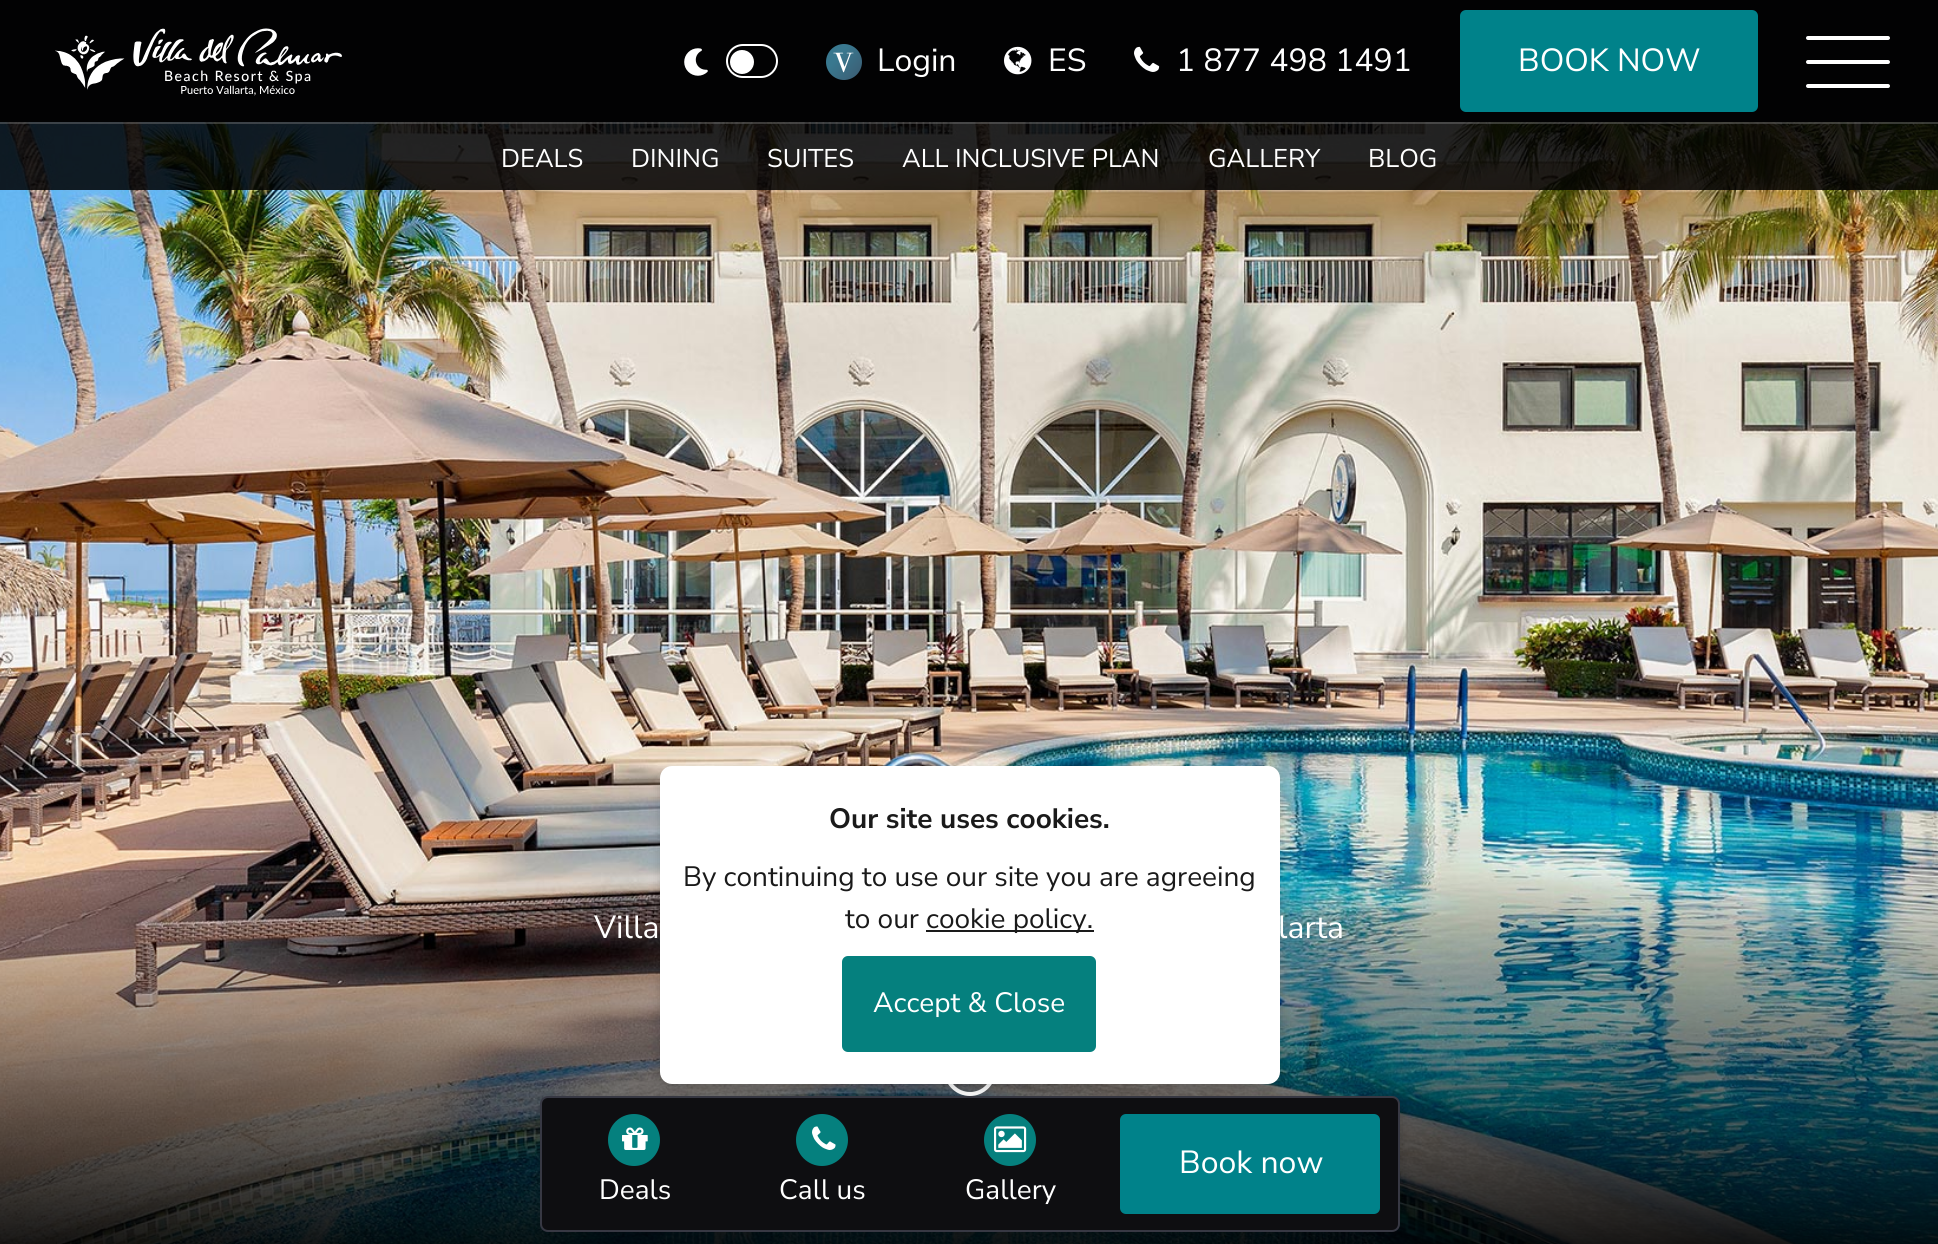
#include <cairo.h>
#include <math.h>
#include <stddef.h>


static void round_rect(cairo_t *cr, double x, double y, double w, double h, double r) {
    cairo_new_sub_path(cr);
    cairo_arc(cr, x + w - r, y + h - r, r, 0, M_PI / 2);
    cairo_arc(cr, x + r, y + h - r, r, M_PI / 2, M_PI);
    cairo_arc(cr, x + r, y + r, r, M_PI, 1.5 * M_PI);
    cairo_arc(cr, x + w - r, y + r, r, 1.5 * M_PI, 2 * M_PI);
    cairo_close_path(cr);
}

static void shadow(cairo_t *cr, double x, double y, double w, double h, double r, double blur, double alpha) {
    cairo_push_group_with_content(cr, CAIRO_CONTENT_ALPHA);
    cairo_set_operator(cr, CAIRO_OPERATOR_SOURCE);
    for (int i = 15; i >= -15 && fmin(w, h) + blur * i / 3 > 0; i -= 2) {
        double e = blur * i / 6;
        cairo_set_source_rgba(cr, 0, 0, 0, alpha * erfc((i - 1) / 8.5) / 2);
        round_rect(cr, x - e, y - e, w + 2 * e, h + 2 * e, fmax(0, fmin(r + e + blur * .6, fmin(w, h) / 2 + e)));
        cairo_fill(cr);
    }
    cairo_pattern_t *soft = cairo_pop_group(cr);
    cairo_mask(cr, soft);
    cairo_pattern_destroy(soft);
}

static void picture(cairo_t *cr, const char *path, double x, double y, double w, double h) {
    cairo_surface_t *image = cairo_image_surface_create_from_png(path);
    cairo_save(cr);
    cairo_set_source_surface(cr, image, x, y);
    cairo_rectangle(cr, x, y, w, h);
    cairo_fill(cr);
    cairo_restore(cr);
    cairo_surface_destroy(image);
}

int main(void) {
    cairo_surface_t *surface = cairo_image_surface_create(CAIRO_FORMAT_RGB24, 1938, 1244);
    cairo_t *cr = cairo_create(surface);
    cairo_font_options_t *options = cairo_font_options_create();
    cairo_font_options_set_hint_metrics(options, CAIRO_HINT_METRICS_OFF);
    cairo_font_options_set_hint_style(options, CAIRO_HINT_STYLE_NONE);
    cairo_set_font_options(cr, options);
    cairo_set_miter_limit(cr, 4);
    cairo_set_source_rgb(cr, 1, 1, 1);
    cairo_paint(cr);
    picture(cr, "img6.png", 0, 122, 1938, 1122);
    cairo_set_source_rgba(cr, 0.008, 0.008, 0.012, 0.8);
    cairo_rectangle(cr, 0, 122, 1938, 68);
    cairo_fill(cr);
    cairo_set_source_rgba(cr, 0.008, 0.008, 0.012, 0.5);
    cairo_rectangle(cr, 0, 122, 1938, 2);
    cairo_fill(cr);
    cairo_set_source_rgba(cr, 1, 1, 1, 0.2);
    cairo_rectangle(cr, 0, 122, 1938, 2);
    cairo_fill(cr);
    cairo_set_source_rgb(cr, 0.008, 0.008, 0.012);
    cairo_rectangle(cr, 0, 0, 1938, 122);
    cairo_fill(cr);
    picture(cr, "img1.png", 55, 28, 287, 68);
    picture(cr, "img2.png", 684, 48, 24, 28);
    round_rect(cr, 727, 45, 50, 32, 16);
    cairo_set_source_rgb(cr, 1, 1, 1);
    cairo_stroke(cr);
    cairo_arc(cr, 742, 62, 12, 0, 2 * M_PI);
    cairo_fill(cr);
    picture(cr, "img3.png", 826, 44, 36, 36);
    cairo_select_font_face(cr, "Nunito Sans", CAIRO_FONT_SLANT_NORMAL, CAIRO_FONT_WEIGHT_NORMAL);
    cairo_set_font_size(cr, 32);
    cairo_move_to(cr, 877, 71);
    cairo_show_text(cr, "Login");
    picture(cr, "img4.png", 1004, 46, 28, 29);
    cairo_move_to(cr, 1048, 71);
    cairo_show_text(cr, "ES");
    picture(cr, "img5.png", 1134, 46, 26, 26);
    cairo_move_to(cr, 1176, 71);
    cairo_show_text(cr, "1 877 498 1491");
    cairo_set_source_rgb(cr, 0, 0.51, 0.541);
    round_rect(cr, 1461, 11, 296, 100, 5);
    cairo_fill_preserve(cr);
    cairo_stroke(cr);
    cairo_set_source_rgb(cr, 1, 1, 1);
    cairo_move_to(cr, 1518, 71);
    cairo_show_text(cr, "BOOK NOW");
    round_rect(cr, 1806, 36, 84, 4, 2);
    cairo_fill(cr);
    round_rect(cr, 1806, 60, 84, 4, 2);
    cairo_fill(cr);
    round_rect(cr, 1806, 84, 84, 4, 2);
    cairo_fill(cr);
    cairo_set_source_rgba(cr, 0.008, 0.008, 0.012, 0.3);
    cairo_rectangle(cr, 0, 124, 1938, 66);
    cairo_fill(cr);
    cairo_set_font_size(cr, 25.6);
    cairo_set_source_rgb(cr, 1, 1, 1);
    cairo_move_to(cr, 501, 167);
    cairo_show_text(cr, "DEALS");
    cairo_move_to(cr, 631, 167);
    cairo_show_text(cr, "DINING");
    cairo_move_to(cr, 767, 167);
    cairo_show_text(cr, "SUITES");
    cairo_move_to(cr, 902, 167);
    cairo_show_text(cr, "ALL INCLUSIVE PLAN");
    cairo_move_to(cr, 1208, 167);
    cairo_show_text(cr, "GALLERY");
    cairo_move_to(cr, 1368, 167);
    cairo_show_text(cr, "BLOG");
    round_rect(cr, 946, 1006, 48, 88, 24);
    cairo_set_line_width(cr, 4);
    cairo_stroke(cr);
    cairo_set_source_rgb(cr, 0, 0, 0);
    shadow(cr, 540, 1102, 860, 136, 8, 6, 0.16);
    cairo_set_source_rgb(cr, 0.055, 0.055, 0.067);
    round_rect(cr, 541, 1097, 858, 134, 7);
    cairo_fill_preserve(cr);
    cairo_set_source_rgb(cr, 0.216, 0.22, 0.263);
    cairo_set_line_width(cr, 2);
    cairo_stroke(cr);
    cairo_set_source_rgb(cr, 0, 0, 0);
    shadow(cr, 660, 772, 620, 318, 12, 6, 0.16);
    cairo_set_source_rgb(cr, 1, 1, 1);
    round_rect(cr, 660, 766, 620, 318, 12);
    cairo_fill(cr);
    cairo_select_font_face(cr, "Nunito Sans", CAIRO_FONT_SLANT_NORMAL, CAIRO_FONT_WEIGHT_BOLD);
    cairo_set_font_size(cr, 28);
    cairo_set_source_rgb(cr, 0.102, 0.102, 0.102);
    cairo_move_to(cr, 829, 828);
    cairo_show_text(cr, "Our site uses cookies.");
    cairo_select_font_face(cr, "Nunito Sans", CAIRO_FONT_SLANT_NORMAL, CAIRO_FONT_WEIGHT_NORMAL);
    cairo_move_to(cr, 683, 886);
    cairo_show_text(cr, "By continuing to use our site you are agreeing");
    cairo_move_to(cr, 845, 928);
    cairo_show_text(cr, "to our");
    cairo_rectangle(cr, 926, 930, 168, 2);
    cairo_fill(cr);
    cairo_move_to(cr, 926, 928);
    cairo_show_text(cr, "cookie policy.");
    cairo_set_source_rgb(cr, 0.02, 0.502, 0.494);
    round_rect(cr, 843, 957, 252, 94, 5);
    cairo_fill_preserve(cr);
    cairo_stroke(cr);
    cairo_set_source_rgb(cr, 1, 1, 1);
    cairo_move_to(cr, 873, 1012);
    cairo_show_text(cr, "Accept & Close");
    cairo_set_font_size(cr, 32);
    cairo_move_to(cr, 594, 938);
    cairo_show_text(cr, "Villa");
    cairo_move_to(cr, 1278, 938);
    cairo_show_text(cr, "larta");
    cairo_set_source_rgb(cr, 0, 0.51, 0.541);
    round_rect(cr, 1121, 1115, 258, 98, 5);
    cairo_fill_preserve(cr);
    cairo_stroke(cr);
    cairo_set_source_rgb(cr, 1, 1, 1);
    cairo_move_to(cr, 1179, 1173);
    cairo_show_text(cr, "Book now");
    cairo_set_source_rgb(cr, 0.02, 0.502, 0.494);
    cairo_new_path(cr);
    cairo_arc(cr, 634, 1140, 26, 0, 2 * M_PI);
    cairo_fill(cr);
    picture(cr, "img7.png", 622, 1127, 26, 23);
    cairo_set_font_size(cr, 28);
    cairo_set_source_rgb(cr, 1, 1, 1);
    cairo_move_to(cr, 599, 1199);
    cairo_show_text(cr, "Deals");
    cairo_set_source_rgb(cr, 0.02, 0.502, 0.494);
    cairo_new_path(cr);
    cairo_arc(cr, 822, 1140, 26, 0, 2 * M_PI);
    cairo_fill(cr);
    picture(cr, "img8.png", 812, 1126, 24, 24);
    cairo_set_source_rgb(cr, 1, 1, 1);
    cairo_move_to(cr, 779, 1199);
    cairo_show_text(cr, "Call us");
    cairo_set_source_rgb(cr, 0.02, 0.502, 0.494);
    cairo_new_path(cr);
    cairo_arc(cr, 1010, 1140, 26, 0, 2 * M_PI);
    cairo_fill(cr);
    picture(cr, "img9.png", 994, 1126, 33, 27);
    cairo_set_source_rgb(cr, 1, 1, 1);
    cairo_move_to(cr, 965, 1199);
    cairo_show_text(cr, "Gallery");
    cairo_surface_write_to_png(surface, "page.png");
    cairo_font_options_destroy(options);
    cairo_destroy(cr);
    cairo_surface_destroy(surface);
    return 0;
}
